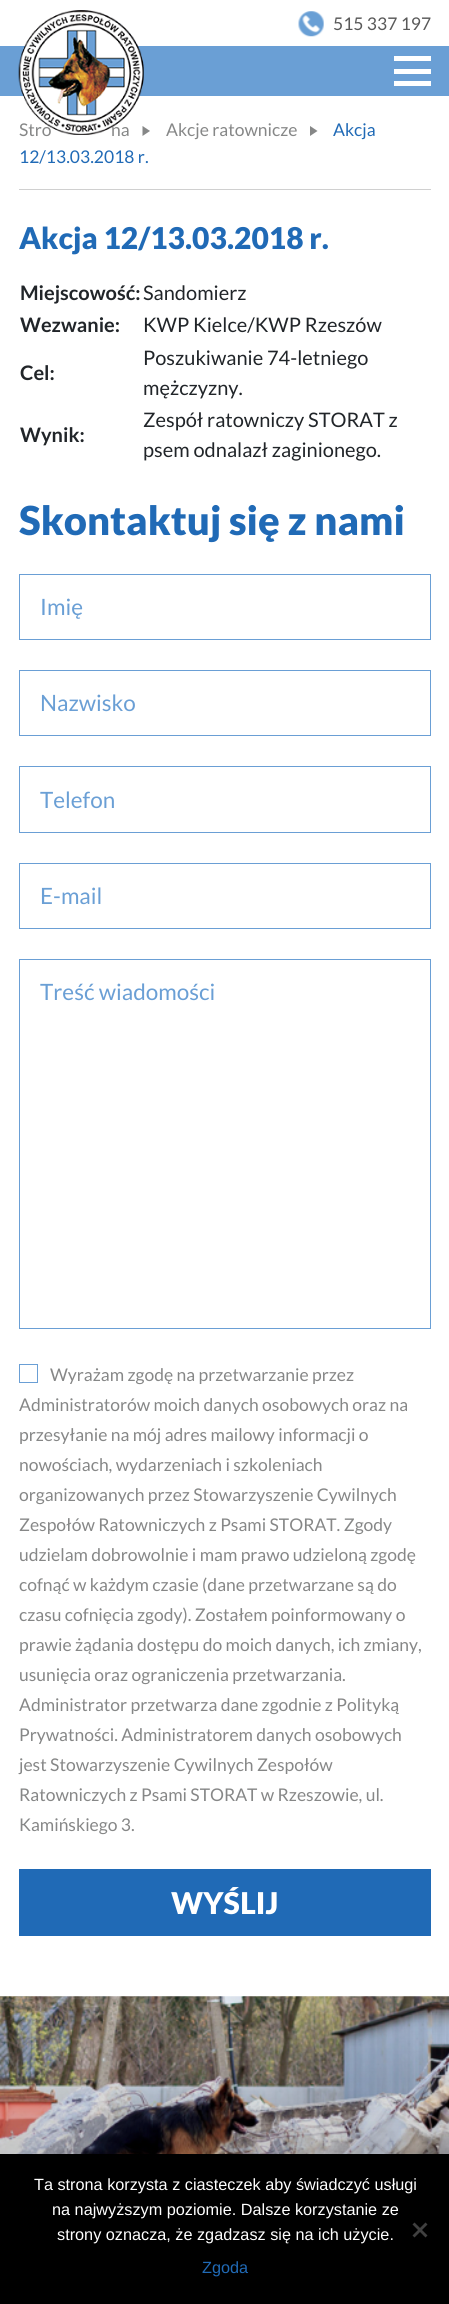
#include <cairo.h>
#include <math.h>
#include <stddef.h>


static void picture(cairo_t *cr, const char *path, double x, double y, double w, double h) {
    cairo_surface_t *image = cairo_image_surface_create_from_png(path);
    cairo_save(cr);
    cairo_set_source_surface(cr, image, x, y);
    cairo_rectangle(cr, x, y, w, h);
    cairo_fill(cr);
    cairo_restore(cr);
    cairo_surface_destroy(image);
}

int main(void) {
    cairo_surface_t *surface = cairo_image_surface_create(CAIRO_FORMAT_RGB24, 449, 2304);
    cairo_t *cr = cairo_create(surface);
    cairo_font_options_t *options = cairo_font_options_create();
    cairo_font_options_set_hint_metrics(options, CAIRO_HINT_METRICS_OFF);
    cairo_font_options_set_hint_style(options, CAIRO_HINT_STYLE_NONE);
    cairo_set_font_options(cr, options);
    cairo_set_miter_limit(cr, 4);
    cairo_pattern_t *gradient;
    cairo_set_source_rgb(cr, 1, 1, 1);
    cairo_paint(cr);
    cairo_set_source_rgb(cr, 0.416, 0.624, 0.835);
    cairo_rectangle(cr, 0, 46, 449, 50);
    cairo_fill(cr);
    cairo_select_font_face(cr, "Lato", CAIRO_FONT_SLANT_NORMAL, CAIRO_FONT_WEIGHT_NORMAL);
    cairo_set_font_size(cr, 17.5);
    cairo_set_source_rgb(cr, 0.525, 0.529, 0.529);
    cairo_move_to(cr, 19, 136);
    cairo_show_text(cr, "Stro");
    cairo_move_to(cr, 111, 136);
    cairo_show_text(cr, "na");
    cairo_new_path(cr);
    cairo_move_to(cr, 142.5, 136);
    cairo_line_to(cr, 142.5, 126);
    cairo_line_to(cr, 150, 131);
    cairo_close_path(cr);
    cairo_fill(cr);
    picture(cr, "img1.png", 18, 10, 126, 125);
    picture(cr, "img2.png", 298, 11, 26, 26);
    cairo_set_source_rgb(cr, 0.349, 0.349, 0.349);
    cairo_move_to(cr, 333, 30);
    cairo_show_text(cr, "515 337 197");
    cairo_set_source_rgb(cr, 1, 1, 1);
    cairo_rectangle(cr, 394, 56, 37, 5);
    cairo_fill(cr);
    cairo_rectangle(cr, 394, 69, 37, 5);
    cairo_fill(cr);
    cairo_rectangle(cr, 394, 81, 37, 5);
    cairo_fill(cr);
    cairo_set_source_rgb(cr, 0.816, 0.816, 0.816);
    cairo_rectangle(cr, 19, 189, 412, 1);
    cairo_fill(cr);
    cairo_set_source_rgb(cr, 0.525, 0.529, 0.529);
    cairo_move_to(cr, 166, 136);
    cairo_show_text(cr, "Akcje ratownicze");
    cairo_new_path(cr);
    cairo_move_to(cr, 310, 136);
    cairo_line_to(cr, 310, 126);
    cairo_line_to(cr, 317.5, 131);
    cairo_close_path(cr);
    cairo_fill(cr);
    cairo_set_source_rgb(cr, 0.125, 0.416, 0.714);
    cairo_move_to(cr, 333, 136);
    cairo_show_text(cr, "Akcja");
    cairo_move_to(cr, 19, 163);
    cairo_show_text(cr, "12/13.03.2018 r.");
    cairo_select_font_face(cr, "Lato Black", CAIRO_FONT_SLANT_NORMAL, CAIRO_FONT_WEIGHT_NORMAL);
    cairo_set_font_size(cr, 30);
    cairo_move_to(cr, 19, 249);
    cairo_show_text(cr, "Akcja 12/13.03.2018 r.");
    cairo_select_font_face(cr, "Lato", CAIRO_FONT_SLANT_NORMAL, CAIRO_FONT_WEIGHT_BOLD);
    cairo_set_font_size(cr, 20);
    cairo_set_source_rgb(cr, 0.129, 0.145, 0.161);
    cairo_move_to(cr, 20, 300);
    cairo_show_text(cr, "Miejscowość:");
    cairo_select_font_face(cr, "Lato", CAIRO_FONT_SLANT_NORMAL, CAIRO_FONT_WEIGHT_NORMAL);
    cairo_move_to(cr, 143, 300);
    cairo_show_text(cr, "Sandomierz");
    cairo_select_font_face(cr, "Lato", CAIRO_FONT_SLANT_NORMAL, CAIRO_FONT_WEIGHT_BOLD);
    cairo_move_to(cr, 20, 332);
    cairo_show_text(cr, "Wezwanie:");
    cairo_select_font_face(cr, "Lato", CAIRO_FONT_SLANT_NORMAL, CAIRO_FONT_WEIGHT_NORMAL);
    cairo_move_to(cr, 143, 332);
    cairo_show_text(cr, "KWP Kielce/KWP Rzeszów");
    cairo_select_font_face(cr, "Lato", CAIRO_FONT_SLANT_NORMAL, CAIRO_FONT_WEIGHT_BOLD);
    cairo_move_to(cr, 20, 380);
    cairo_show_text(cr, "Cel:");
    cairo_select_font_face(cr, "Lato", CAIRO_FONT_SLANT_NORMAL, CAIRO_FONT_WEIGHT_NORMAL);
    cairo_move_to(cr, 143, 365);
    cairo_show_text(cr, "Poszukiwanie 74-letniego");
    cairo_move_to(cr, 143, 395);
    cairo_show_text(cr, "mężczyzny.");
    cairo_select_font_face(cr, "Lato", CAIRO_FONT_SLANT_NORMAL, CAIRO_FONT_WEIGHT_BOLD);
    cairo_move_to(cr, 20, 442);
    cairo_show_text(cr, "Wynik:");
    cairo_select_font_face(cr, "Lato", CAIRO_FONT_SLANT_NORMAL, CAIRO_FONT_WEIGHT_NORMAL);
    cairo_move_to(cr, 143, 427);
    cairo_show_text(cr, "Zespół ratowniczy STORAT z");
    cairo_move_to(cr, 143, 457);
    cairo_show_text(cr, "psem odnalazł zaginionego.");
    cairo_select_font_face(cr, "Lato Black", CAIRO_FONT_SLANT_NORMAL, CAIRO_FONT_WEIGHT_NORMAL);
    cairo_set_font_size(cr, 40);
    cairo_set_source_rgb(cr, 0.125, 0.416, 0.714);
    cairo_move_to(cr, 19, 535);
    cairo_show_text(cr, "Skontaktuj się z nami");
    cairo_rectangle(cr, 19.5, 574.5, 411, 65);
    cairo_set_source_rgb(cr, 0.416, 0.624, 0.835);
    cairo_set_line_width(cr, 1);
    cairo_stroke(cr);
    cairo_select_font_face(cr, "Lato", CAIRO_FONT_SLANT_NORMAL, CAIRO_FONT_WEIGHT_NORMAL);
    cairo_set_font_size(cr, 22.5);
    cairo_move_to(cr, 40, 615);
    cairo_show_text(cr, "Imię");
    cairo_rectangle(cr, 19.5, 670.5, 411, 65);
    cairo_stroke(cr);
    cairo_move_to(cr, 40, 711);
    cairo_show_text(cr, "Nazwisko");
    cairo_rectangle(cr, 19.5, 766.5, 411, 66);
    cairo_stroke(cr);
    cairo_move_to(cr, 40, 808);
    cairo_show_text(cr, "Telefon");
    cairo_rectangle(cr, 19.5, 863.5, 411, 65);
    cairo_stroke(cr);
    cairo_move_to(cr, 40, 904);
    cairo_show_text(cr, "E-mail");
    cairo_rectangle(cr, 19.5, 959.5, 411, 369);
    cairo_stroke(cr);
    cairo_move_to(cr, 40, 1000);
    cairo_show_text(cr, "Treść wiadomości");
    cairo_rectangle(cr, 19.5, 1364.5, 18, 18);
    cairo_stroke(cr);
    cairo_set_font_size(cr, 17.5);
    cairo_set_source_rgb(cr, 0.525, 0.529, 0.529);
    cairo_move_to(cr, 50, 1381);
    cairo_show_text(cr, "Wyrażam zgodę na przetwarzanie przez");
    cairo_move_to(cr, 19, 1411);
    cairo_show_text(cr, "Administratorów moich danych osobowych oraz na");
    cairo_move_to(cr, 19, 1441);
    cairo_show_text(cr, "przesyłanie na mój adres mailowy informacji o");
    cairo_move_to(cr, 19, 1471);
    cairo_show_text(cr, "nowościach, wydarzeniach i szkoleniach");
    cairo_move_to(cr, 19, 1501);
    cairo_show_text(cr, "organizowanych przez Stowarzyszenie Cywilnych");
    cairo_move_to(cr, 19, 1531);
    cairo_show_text(cr, "Zespołów Ratowniczych z Psami STORAT. Zgody");
    cairo_move_to(cr, 19, 1561);
    cairo_show_text(cr, "udzielam dobrowolnie i mam prawo udzieloną zgodę");
    cairo_move_to(cr, 19, 1591);
    cairo_show_text(cr, "cofnąć w każdym czasie (dane przetwarzane są do");
    cairo_move_to(cr, 19, 1621);
    cairo_show_text(cr, "czasu cofnięcia zgody). Zostałem poinformowany o");
    cairo_move_to(cr, 19, 1651);
    cairo_show_text(cr, "prawie żądania dostępu do moich danych, ich zmiany,");
    cairo_move_to(cr, 19, 1681);
    cairo_show_text(cr, "usunięcia oraz ograniczenia przetwarzania.");
    cairo_move_to(cr, 19, 1711);
    cairo_show_text(cr, "Administrator przetwarza dane zgodnie z Polityką");
    cairo_move_to(cr, 19, 1741);
    cairo_show_text(cr, "Prywatności. Administratorem danych osobowych");
    cairo_move_to(cr, 19, 1771);
    cairo_show_text(cr, "jest Stowarzyszenie Cywilnych Zespołów");
    cairo_move_to(cr, 19, 1801);
    cairo_show_text(cr, "Ratowniczych z Psami STORAT w Rzeszowie, ul.");
    cairo_move_to(cr, 19, 1831);
    cairo_show_text(cr, "Kamińskiego 3.");
    cairo_set_source_rgb(cr, 0.125, 0.416, 0.714);
    cairo_rectangle(cr, 19, 1869, 412, 67);
    cairo_fill(cr);
    cairo_select_font_face(cr, "Lato Black", CAIRO_FONT_SLANT_NORMAL, CAIRO_FONT_WEIGHT_NORMAL);
    cairo_set_font_size(cr, 30);
    cairo_set_source_rgb(cr, 1, 1, 1);
    cairo_move_to(cr, 171, 1914);
    cairo_show_text(cr, "WYŚLIJ");
    picture(cr, "img3.png", 0, 1996, 449, 158);
    gradient = cairo_pattern_create_linear(225, 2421, 225, 1996);
    cairo_pattern_add_color_stop_rgba(gradient, 0, 0, 0, 0, 0.5);
    cairo_pattern_add_color_stop_rgba(gradient, 1, 0, 0, 0, 0);
    cairo_set_source(cr, gradient);
    cairo_pattern_destroy(gradient);
    cairo_rectangle(cr, 0, 2014, 449, 140);
    cairo_fill(cr);
    cairo_set_source_rgb(cr, 0, 0, 0);
    cairo_rectangle(cr, 0, 2154, 449, 150);
    cairo_fill(cr);
    cairo_select_font_face(cr, "Liberation Sans", CAIRO_FONT_SLANT_NORMAL, CAIRO_FONT_WEIGHT_NORMAL);
    cairo_set_font_size(cr, 16.25);
    cairo_set_source_rgb(cr, 1, 1, 1);
    cairo_move_to(cr, 34, 2190);
    cairo_show_text(cr, "Ta strona korzysta z ciasteczek aby świadczyć usługi");
    cairo_move_to(cr, 52, 2215);
    cairo_show_text(cr, "na najwyższym poziomie. Dalsze korzystanie ze");
    cairo_move_to(cr, 57, 2240);
    cairo_show_text(cr, "strony oznacza, że zgadzasz się na ich użycie.");
    cairo_set_source_rgb(cr, 0.251, 0.251, 0.251);
    cairo_new_path(cr);
    cairo_move_to(cr, 425.5, 2222.5);
    cairo_line_to(cr, 427.5, 2224.5);
    cairo_line_to(cr, 414.5, 2237.5);
    cairo_line_to(cr, 412.5, 2235.5);
    cairo_close_path(cr);
    cairo_fill(cr);
    cairo_new_path(cr);
    cairo_move_to(cr, 412.5, 2224.5);
    cairo_line_to(cr, 414.5, 2222.5);
    cairo_line_to(cr, 427.5, 2235.5);
    cairo_line_to(cr, 425.5, 2237.5);
    cairo_close_path(cr);
    cairo_fill(cr);
    cairo_set_source_rgb(cr, 0.125, 0.416, 0.714);
    cairo_move_to(cr, 202, 2273);
    cairo_show_text(cr, "Zgoda");
    cairo_surface_write_to_png(surface, "page.png");
    cairo_font_options_destroy(options);
    cairo_destroy(cr);
    cairo_surface_destroy(surface);
    return 0;
}
